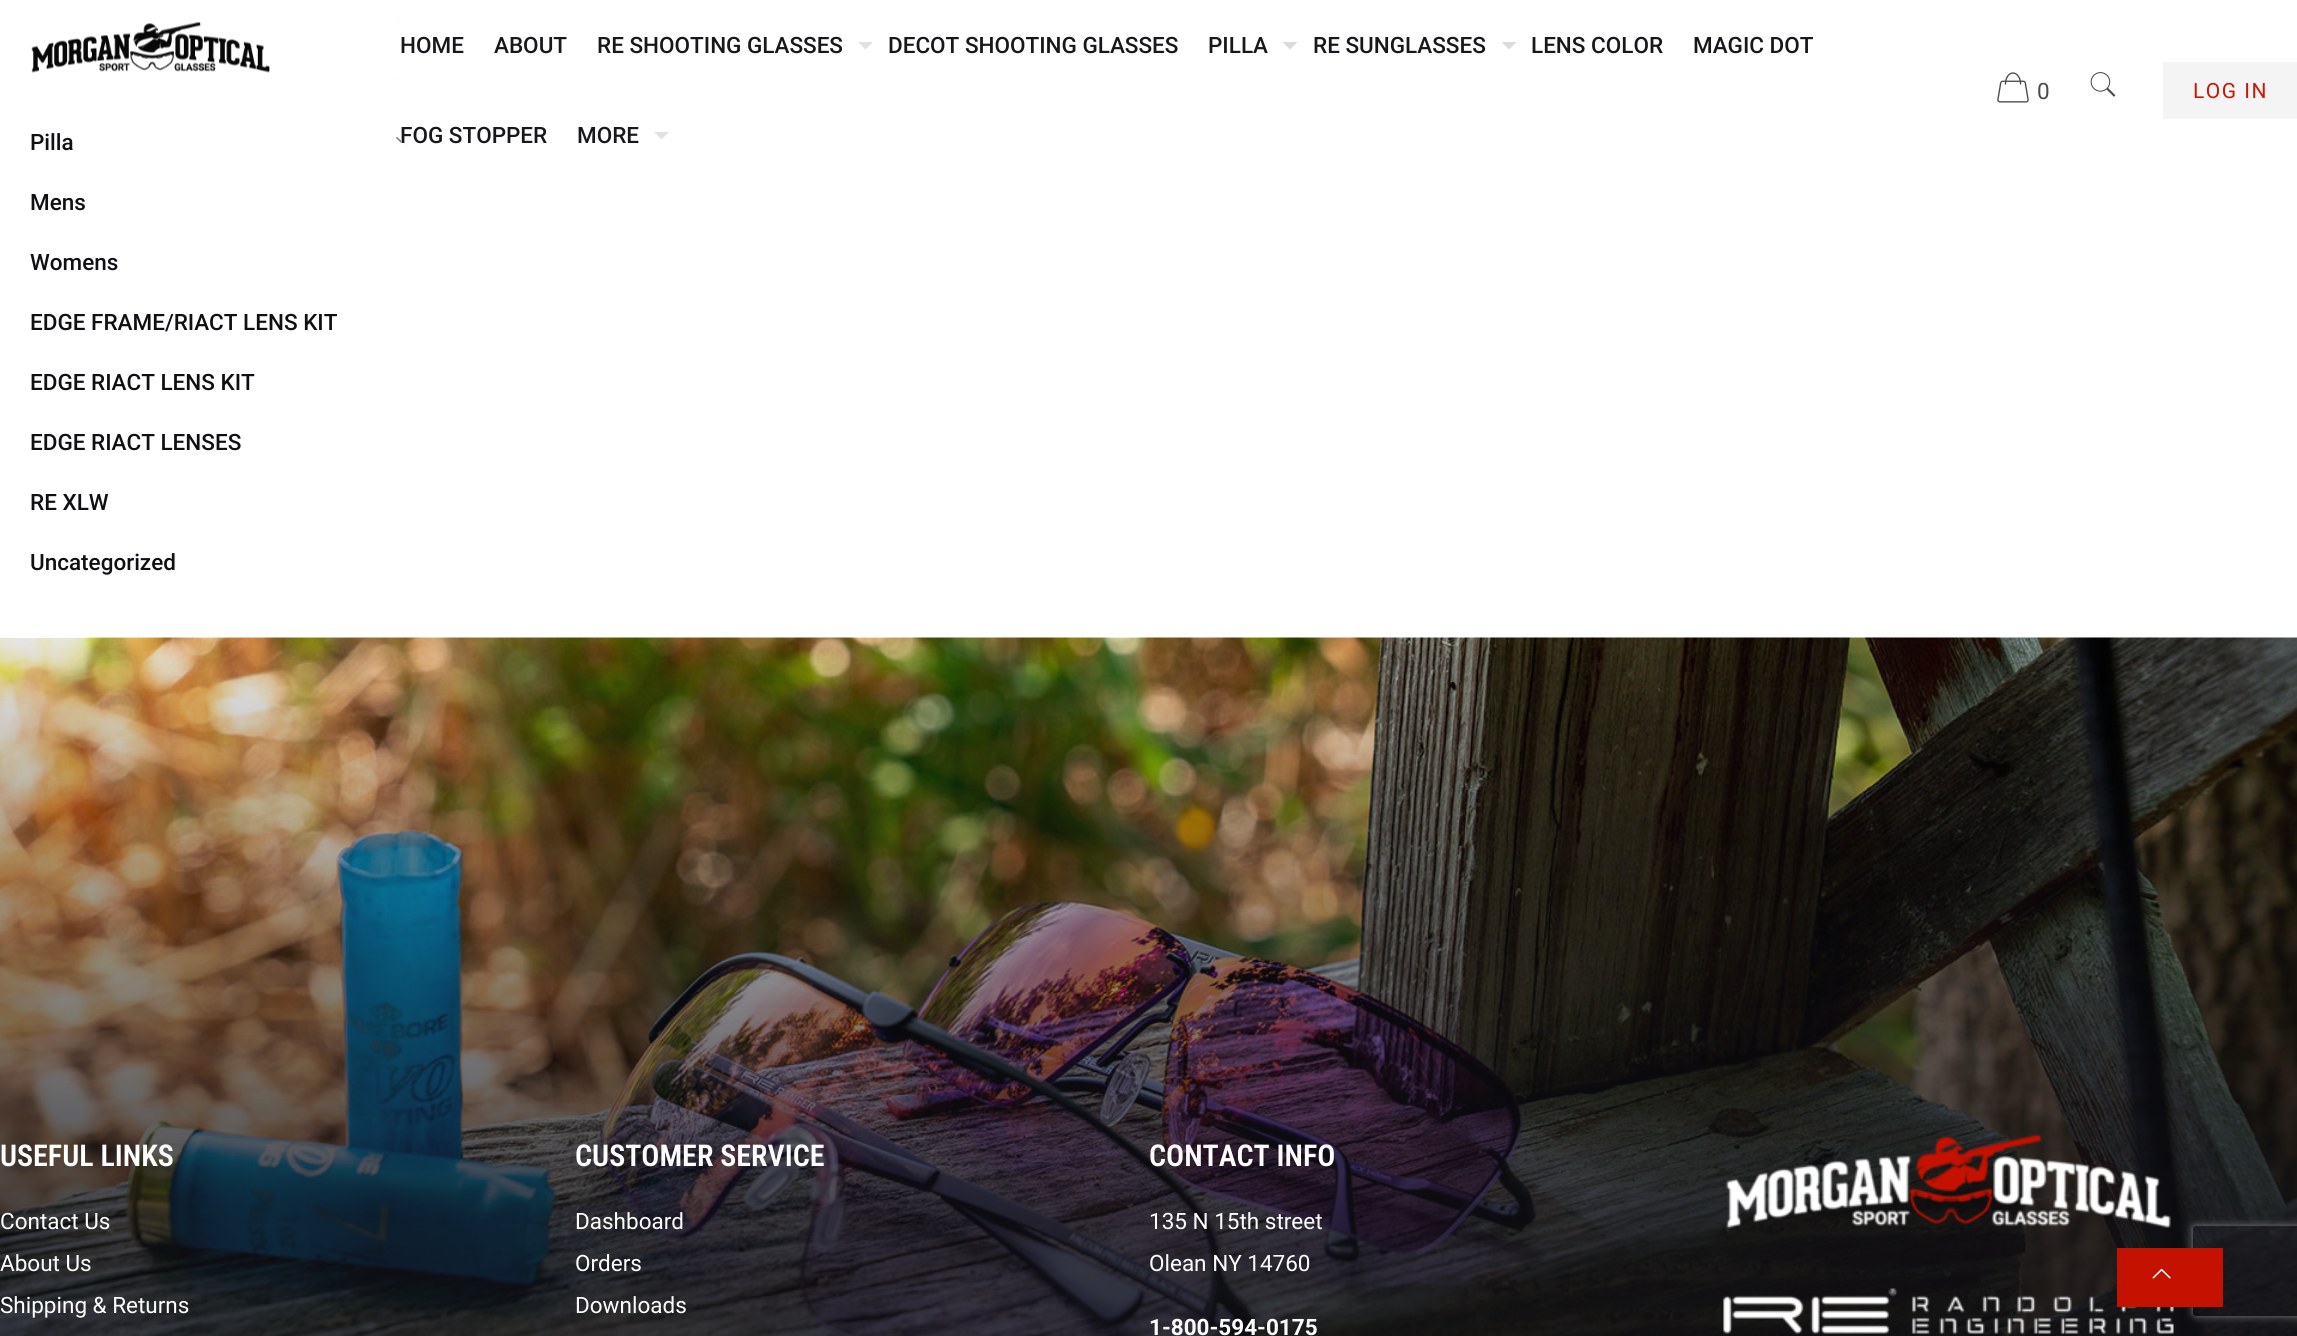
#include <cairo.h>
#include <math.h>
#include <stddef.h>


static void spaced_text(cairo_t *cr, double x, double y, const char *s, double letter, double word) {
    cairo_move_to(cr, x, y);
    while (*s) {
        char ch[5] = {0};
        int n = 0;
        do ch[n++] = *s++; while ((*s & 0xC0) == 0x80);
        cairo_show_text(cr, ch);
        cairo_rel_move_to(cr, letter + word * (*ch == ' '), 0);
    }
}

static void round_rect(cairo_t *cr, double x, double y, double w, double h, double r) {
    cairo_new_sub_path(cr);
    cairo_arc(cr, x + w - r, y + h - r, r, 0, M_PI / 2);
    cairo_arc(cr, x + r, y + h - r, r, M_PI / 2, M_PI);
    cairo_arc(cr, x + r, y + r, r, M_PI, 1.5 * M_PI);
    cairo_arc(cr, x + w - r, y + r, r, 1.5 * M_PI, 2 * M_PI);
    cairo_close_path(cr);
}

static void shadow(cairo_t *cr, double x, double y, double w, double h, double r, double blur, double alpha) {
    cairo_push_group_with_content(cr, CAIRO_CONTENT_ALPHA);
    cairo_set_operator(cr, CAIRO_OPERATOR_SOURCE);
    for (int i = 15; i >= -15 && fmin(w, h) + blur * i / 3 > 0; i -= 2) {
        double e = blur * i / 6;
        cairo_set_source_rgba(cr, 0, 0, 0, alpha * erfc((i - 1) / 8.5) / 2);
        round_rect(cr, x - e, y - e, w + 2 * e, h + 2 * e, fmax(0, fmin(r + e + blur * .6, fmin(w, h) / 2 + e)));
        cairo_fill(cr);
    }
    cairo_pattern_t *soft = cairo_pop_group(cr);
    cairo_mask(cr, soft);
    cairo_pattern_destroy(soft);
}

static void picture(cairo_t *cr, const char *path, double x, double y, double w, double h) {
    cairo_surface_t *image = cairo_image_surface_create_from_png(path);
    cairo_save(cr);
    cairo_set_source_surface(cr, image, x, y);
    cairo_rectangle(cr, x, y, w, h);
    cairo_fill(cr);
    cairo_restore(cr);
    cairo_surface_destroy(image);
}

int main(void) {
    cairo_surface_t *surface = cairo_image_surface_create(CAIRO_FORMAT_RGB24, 2297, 1336);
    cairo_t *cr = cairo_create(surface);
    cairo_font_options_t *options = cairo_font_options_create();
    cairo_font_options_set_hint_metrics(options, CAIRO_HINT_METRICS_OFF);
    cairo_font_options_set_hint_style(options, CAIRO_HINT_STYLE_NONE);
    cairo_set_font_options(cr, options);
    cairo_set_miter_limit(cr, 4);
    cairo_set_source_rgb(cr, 1, 1, 1);
    cairo_paint(cr);
    cairo_set_source_rgb(cr, 0.937, 0.937, 0.937);
    cairo_rectangle(cr, 459, 0, 1838, 83);
    cairo_fill(cr);
    cairo_arc(cr, 519, 37.5, 19.5, 0, 2 * M_PI);
    cairo_set_source_rgb(cr, 0.341, 0.341, 0.357);
    cairo_set_line_width(cr, 2.4);
    cairo_stroke(cr);
    cairo_new_path(cr);
    cairo_move_to(cr, 514.5, 29.5);
    cairo_curve_to(cr, 515.5, 28, 517.5, 27, 519.5, 27);
    cairo_curve_to(cr, 521, 27, 522.5, 27.5, 523.5, 29);
    cairo_curve_to(cr, 525, 31, 524, 34, 522, 36);
    cairo_line_to(cr, 519, 38.5);
    cairo_line_to(cr, 519, 42.5);
    cairo_stroke(cr);
    cairo_arc(cr, 519, 47.1, 0.5, 0, 2 * M_PI);
    cairo_stroke(cr);
    picture(cr, "img4.png", 396, 17, 20, 11);
    picture(cr, "img4.png", 396, 77, 20, 11);
    cairo_set_source_rgba(cr, 1, 1, 1, 0.97);
    cairo_rectangle(cr, 396, 0, 1901, 88);
    cairo_fill(cr);
    picture(cr, "img1.png", 31, 22, 239, 51);
    picture(cr, "img4.png", 396, 137, 20, 11);
    cairo_rectangle(cr, 401, 17, 139, 131);
    cairo_fill(cr);
    cairo_select_font_face(cr, "Roboto Medium", CAIRO_FONT_SLANT_NORMAL, CAIRO_FONT_WEIGHT_NORMAL);
    cairo_set_font_size(cr, 22.5);
    cairo_set_source_rgb(cr, 0.09, 0.09, 0.11);
    cairo_move_to(cr, 400, 53);
    cairo_show_text(cr, "HOME");
    cairo_move_to(cr, 494, 53);
    cairo_show_text(cr, "ABOUT");
    cairo_move_to(cr, 597, 53);
    cairo_show_text(cr, "RE SHOOTING GLASSES");
    cairo_set_source_rgb(cr, 0.882, 0.882, 0.882);
    cairo_new_path(cr);
    cairo_move_to(cr, 858, 42);
    cairo_line_to(cr, 873, 42);
    cairo_line_to(cr, 865.5, 49.5);
    cairo_close_path(cr);
    cairo_fill(cr);
    cairo_set_source_rgb(cr, 0.09, 0.09, 0.11);
    cairo_move_to(cr, 888, 53);
    cairo_show_text(cr, "DECOT SHOOTING GLASSES");
    cairo_move_to(cr, 1208, 53);
    cairo_show_text(cr, "PILLA");
    cairo_set_source_rgb(cr, 0.859, 0.859, 0.859);
    cairo_new_path(cr);
    cairo_move_to(cr, 1282.5, 42);
    cairo_line_to(cr, 1297.5, 42);
    cairo_line_to(cr, 1290, 49.5);
    cairo_close_path(cr);
    cairo_fill(cr);
    cairo_set_source_rgb(cr, 0.09, 0.09, 0.11);
    cairo_move_to(cr, 1313, 53);
    cairo_show_text(cr, "RE SUNGLASSES");
    cairo_set_source_rgb(cr, 0.859, 0.859, 0.859);
    cairo_new_path(cr);
    cairo_move_to(cr, 1501.5, 42);
    cairo_line_to(cr, 1516.5, 42);
    cairo_line_to(cr, 1509, 49.5);
    cairo_close_path(cr);
    cairo_fill(cr);
    cairo_set_source_rgb(cr, 0.09, 0.09, 0.11);
    cairo_move_to(cr, 1531, 53);
    cairo_show_text(cr, "LENS COLOR");
    cairo_move_to(cr, 1693, 53);
    cairo_show_text(cr, "MAGIC DOT");
    cairo_move_to(cr, 400, 143);
    cairo_show_text(cr, "FOG STOPPER");
    cairo_move_to(cr, 577, 143);
    cairo_show_text(cr, "MORE");
    cairo_set_source_rgb(cr, 0.882, 0.882, 0.882);
    cairo_new_path(cr);
    cairo_move_to(cr, 654, 132);
    cairo_line_to(cr, 669, 132);
    cairo_line_to(cr, 661.5, 139.5);
    cairo_close_path(cr);
    cairo_fill(cr);
    picture(cr, "img2.png", 1997, 72, 32, 31);
    cairo_select_font_face(cr, "Roboto", CAIRO_FONT_SLANT_NORMAL, CAIRO_FONT_WEIGHT_NORMAL);
    cairo_set_source_rgb(cr, 0.29, 0.29, 0.29);
    cairo_move_to(cr, 2037, 99);
    cairo_show_text(cr, "0");
    picture(cr, "img3.png", 2090, 72, 26, 25);
    cairo_set_source_rgb(cr, 0.957, 0.957, 0.957);
    cairo_rectangle(cr, 2163, 62, 134, 57);
    cairo_fill(cr);
    cairo_set_font_size(cr, 21);
    cairo_set_source_rgb(cr, 0.776, 0.094, 0.027);
    spaced_text(cr, 2193, 98, "LOG IN", 1.5, 0);
    cairo_select_font_face(cr, "Roboto Medium", CAIRO_FONT_SLANT_NORMAL, CAIRO_FONT_WEIGHT_NORMAL);
    cairo_set_font_size(cr, 22.5);
    cairo_set_source_rgb(cr, 0.063, 0.063, 0.082);
    cairo_move_to(cr, 30, 150);
    cairo_show_text(cr, "Pilla");
    cairo_move_to(cr, 30, 210);
    cairo_show_text(cr, "Mens");
    cairo_move_to(cr, 30, 270);
    cairo_show_text(cr, "Womens");
    cairo_move_to(cr, 30, 330);
    cairo_show_text(cr, "EDGE FRAME/RIACT LENS KIT");
    cairo_move_to(cr, 30, 390);
    cairo_show_text(cr, "EDGE RIACT LENS KIT");
    cairo_move_to(cr, 30, 450);
    cairo_show_text(cr, "EDGE RIACT LENSES");
    cairo_move_to(cr, 30, 510);
    cairo_show_text(cr, "RE XLW");
    cairo_move_to(cr, 30, 570);
    cairo_show_text(cr, "Uncategorized");
    picture(cr, "img5.png", 0, 637, 2297, 699);
    cairo_select_font_face(cr, "Roboto Condensed SemiBold", CAIRO_FONT_SLANT_NORMAL, CAIRO_FONT_WEIGHT_NORMAL);
    cairo_set_font_size(cr, 30);
    cairo_set_source_rgb(cr, 1, 1, 1);
    cairo_move_to(cr, 0, 1166);
    cairo_show_text(cr, "USEFUL LINKS");
    cairo_select_font_face(cr, "Roboto", CAIRO_FONT_SLANT_NORMAL, CAIRO_FONT_WEIGHT_NORMAL);
    cairo_set_font_size(cr, 22.5);
    cairo_move_to(cr, 0, 1229);
    cairo_show_text(cr, "Contact Us");
    cairo_move_to(cr, 0, 1271);
    cairo_show_text(cr, "About Us");
    cairo_move_to(cr, 0, 1313);
    cairo_show_text(cr, "Shipping & Returns");
    cairo_select_font_face(cr, "Roboto Condensed SemiBold", CAIRO_FONT_SLANT_NORMAL, CAIRO_FONT_WEIGHT_NORMAL);
    cairo_set_font_size(cr, 30);
    cairo_move_to(cr, 575, 1166);
    cairo_show_text(cr, "CUSTOMER SERVICE");
    cairo_select_font_face(cr, "Roboto", CAIRO_FONT_SLANT_NORMAL, CAIRO_FONT_WEIGHT_NORMAL);
    cairo_set_font_size(cr, 22.5);
    cairo_move_to(cr, 575, 1229);
    cairo_show_text(cr, "Dashboard");
    cairo_move_to(cr, 575, 1271);
    cairo_show_text(cr, "Orders");
    cairo_move_to(cr, 575, 1313);
    cairo_show_text(cr, "Downloads");
    cairo_select_font_face(cr, "Roboto Condensed SemiBold", CAIRO_FONT_SLANT_NORMAL, CAIRO_FONT_WEIGHT_NORMAL);
    cairo_set_font_size(cr, 30);
    cairo_move_to(cr, 1149, 1166);
    cairo_show_text(cr, "CONTACT INFO");
    cairo_select_font_face(cr, "Roboto", CAIRO_FONT_SLANT_NORMAL, CAIRO_FONT_WEIGHT_NORMAL);
    cairo_set_font_size(cr, 22.5);
    cairo_move_to(cr, 1149, 1229);
    cairo_show_text(cr, "135 N 15th street");
    cairo_move_to(cr, 1149, 1271);
    cairo_show_text(cr, "Olean NY 14760");
    cairo_select_font_face(cr, "Roboto", CAIRO_FONT_SLANT_NORMAL, CAIRO_FONT_WEIGHT_BOLD);
    cairo_move_to(cr, 1149, 1335);
    cairo_show_text(cr, "1-800-594-0175");
    picture(cr, "img6.png", 1726, 1134, 445, 95);
    picture(cr, "img7.png", 1723, 1288, 451, 46);
    cairo_save(cr);
    cairo_set_fill_rule(cr, CAIRO_FILL_RULE_EVEN_ODD);
    cairo_new_path(cr);
    cairo_move_to(cr, 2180, 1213);
    cairo_line_to(cr, 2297, 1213);
    cairo_line_to(cr, 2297, 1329);
    cairo_line_to(cr, 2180, 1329);
    cairo_close_path(cr);
    cairo_move_to(cr, 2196, 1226);
    cairo_line_to(cr, 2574, 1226);
    cairo_curve_to(cr, 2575.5, 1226, 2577, 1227.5, 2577, 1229);
    cairo_line_to(cr, 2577, 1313);
    cairo_curve_to(cr, 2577, 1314.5, 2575.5, 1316, 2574, 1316);
    cairo_line_to(cr, 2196, 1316);
    cairo_curve_to(cr, 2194.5, 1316, 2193, 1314.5, 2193, 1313);
    cairo_line_to(cr, 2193, 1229);
    cairo_curve_to(cr, 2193, 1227.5, 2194.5, 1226, 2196, 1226);
    cairo_close_path(cr);
    cairo_clip(cr);
    cairo_set_source_rgb(cr, 0.502, 0.502, 0.502);
    shadow(cr, 2193, 1226, 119, 90, 3, 4, 1);
    cairo_restore(cr);
    cairo_set_source_rgb(cr, 0.773, 0.067, 0);
    cairo_rectangle(cr, 2117, 1248, 106, 59);
    cairo_fill(cr);
    picture(cr, "img8.png", 2152, 1268, 19, 11);
    cairo_surface_write_to_png(surface, "page.png");
    cairo_font_options_destroy(options);
    cairo_destroy(cr);
    cairo_surface_destroy(surface);
    return 0;
}
